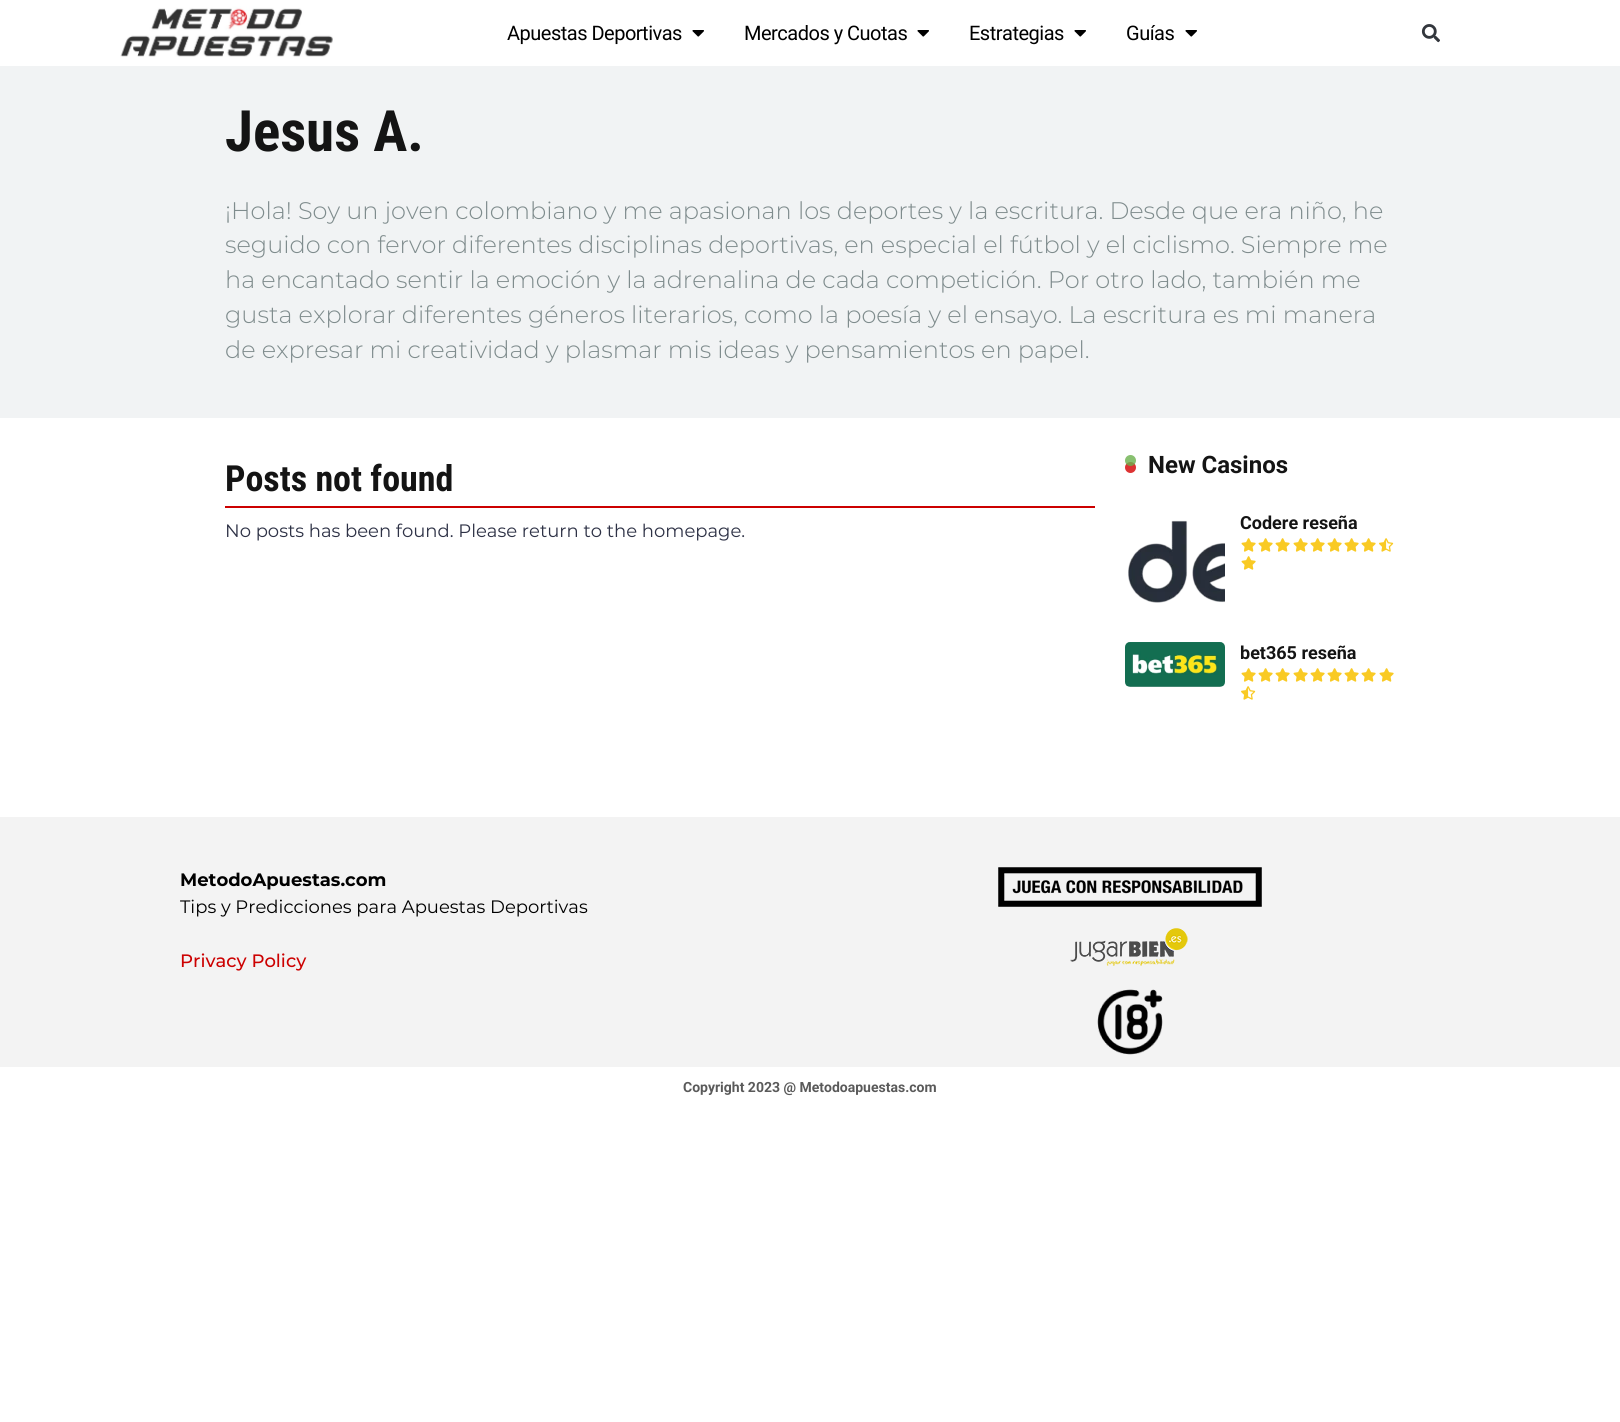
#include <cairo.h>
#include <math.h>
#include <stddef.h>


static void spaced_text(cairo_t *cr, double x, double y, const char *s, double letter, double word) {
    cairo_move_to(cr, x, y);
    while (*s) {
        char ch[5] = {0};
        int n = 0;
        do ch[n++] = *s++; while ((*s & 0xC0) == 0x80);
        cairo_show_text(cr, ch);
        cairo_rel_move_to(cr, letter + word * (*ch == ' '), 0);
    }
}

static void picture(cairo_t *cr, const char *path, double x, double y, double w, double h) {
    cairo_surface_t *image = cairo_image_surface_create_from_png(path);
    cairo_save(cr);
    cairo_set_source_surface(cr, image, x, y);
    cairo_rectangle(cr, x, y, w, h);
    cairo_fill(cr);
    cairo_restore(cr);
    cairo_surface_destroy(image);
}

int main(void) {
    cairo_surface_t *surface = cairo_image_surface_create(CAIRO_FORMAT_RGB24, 1620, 1422);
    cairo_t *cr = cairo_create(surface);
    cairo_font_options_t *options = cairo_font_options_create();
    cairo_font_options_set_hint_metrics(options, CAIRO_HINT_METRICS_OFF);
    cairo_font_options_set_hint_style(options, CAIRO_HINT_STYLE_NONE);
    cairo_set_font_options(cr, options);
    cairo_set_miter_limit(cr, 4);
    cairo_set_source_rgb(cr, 1, 1, 1);
    cairo_paint(cr);
    picture(cr, "img1.png", 120, 6, 213, 51);
    cairo_select_font_face(cr, "Roboto", CAIRO_FONT_SLANT_NORMAL, CAIRO_FONT_WEIGHT_NORMAL);
    cairo_set_font_size(cr, 20);
    cairo_set_source_rgb(cr, 0, 0, 0);
    spaced_text(cr, 507, 40, "Apuestas Deportivas", -0.5, 0);
    picture(cr, "img2.png", 692, 30, 12, 7);
    spaced_text(cr, 744, 40, "Mercados y Cuotas", -0.5, 0);
    picture(cr, "img2.png", 917, 30, 12, 7);
    spaced_text(cr, 969, 40, "Estrategias", -0.5, 0);
    picture(cr, "img2.png", 1074, 30, 12, 7);
    spaced_text(cr, 1126, 40, "Guías", -0.5, 0);
    picture(cr, "img2.png", 1185, 30, 12, 7);
    picture(cr, "img3.png", 1421, 24, 19, 19);
    cairo_set_source_rgb(cr, 0.945, 0.953, 0.957);
    cairo_rectangle(cr, 0, 66, 1620, 352);
    cairo_fill(cr);
    cairo_select_font_face(cr, "Roboto Condensed", CAIRO_FONT_SLANT_NORMAL, CAIRO_FONT_WEIGHT_BOLD);
    cairo_set_font_size(cr, 57);
    cairo_set_source_rgb(cr, 0.082, 0.082, 0.082);
    cairo_move_to(cr, 225, 151);
    cairo_show_text(cr, "Jesus A.");
    cairo_select_font_face(cr, "Montserrat Light", CAIRO_FONT_SLANT_NORMAL, CAIRO_FONT_WEIGHT_NORMAL);
    cairo_set_font_size(cr, 24);
    cairo_set_source_rgb(cr, 0.498, 0.549, 0.553);
    cairo_move_to(cr, 225, 219);
    cairo_show_text(cr, "¡Hola! Soy un joven colombiano y me apasionan los deportes y la escritura. Desde que era niño, he");
    cairo_move_to(cr, 225, 253);
    cairo_show_text(cr, "seguido con fervor diferentes disciplinas deportivas, en especial el fútbol y el ciclismo. Siempre me");
    cairo_move_to(cr, 225, 288);
    cairo_show_text(cr, "ha encantado sentir la emoción y la adrenalina de cada competición. Por otro lado, también me");
    cairo_move_to(cr, 225, 323);
    cairo_show_text(cr, "gusta explorar diferentes géneros literarios, como la poesía y el ensayo. La escritura es mi manera");
    cairo_move_to(cr, 225, 358);
    cairo_show_text(cr, "de expresar mi creatividad y plasmar mis ideas y pensamientos en papel.");
    cairo_set_source_rgb(cr, 0.8, 0, 0);
    cairo_rectangle(cr, 225, 506, 870, 2);
    cairo_fill(cr);
    cairo_select_font_face(cr, "Roboto Condensed", CAIRO_FONT_SLANT_NORMAL, CAIRO_FONT_WEIGHT_BOLD);
    cairo_set_font_size(cr, 36);
    cairo_set_source_rgb(cr, 0.082, 0.082, 0.082);
    cairo_move_to(cr, 225, 491);
    cairo_show_text(cr, "Posts not found");
    cairo_select_font_face(cr, "Montserrat", CAIRO_FONT_SLANT_NORMAL, CAIRO_FONT_WEIGHT_NORMAL);
    cairo_set_font_size(cr, 18);
    cairo_set_source_rgb(cr, 0.18, 0.196, 0.275);
    cairo_move_to(cr, 225, 537);
    cairo_show_text(cr, "No posts has been found. Please return to the homepage.");
    cairo_set_source_rgb(cr, 0.867, 0.2, 0.2);
    cairo_new_path(cr);
    cairo_arc(cr, 1130.5, 467.5, 5.5, 0, 2 * M_PI);
    cairo_fill(cr);
    cairo_set_source_rgba(cr, 0.416, 0.69, 0.298, 0.8);
    cairo_arc(cr, 1130.5, 460.5, 5.5, 0, 2 * M_PI);
    cairo_fill(cr);
    cairo_select_font_face(cr, "Roboto", CAIRO_FONT_SLANT_NORMAL, CAIRO_FONT_WEIGHT_BOLD);
    cairo_set_font_size(cr, 24);
    cairo_set_source_rgb(cr, 0.082, 0.082, 0.082);
    cairo_move_to(cr, 1148, 473);
    cairo_show_text(cr, "New Casinos");
    picture(cr, "img4.png", 1128, 520, 97, 83);
    cairo_set_font_size(cr, 18);
    cairo_move_to(cr, 1240, 529);
    cairo_show_text(cr, "Codere reseña");
    picture(cr, "img5.png", 1241, 538, 15, 14);
    picture(cr, "img5.png", 1258, 538, 15, 14);
    picture(cr, "img5.png", 1275, 538, 15, 14);
    picture(cr, "img5.png", 1293, 538, 15, 14);
    picture(cr, "img5.png", 1310, 538, 15, 14);
    picture(cr, "img5.png", 1327, 538, 15, 14);
    picture(cr, "img5.png", 1344, 538, 15, 14);
    picture(cr, "img5.png", 1361, 538, 15, 14);
    picture(cr, "img6.png", 1379, 538, 15, 14);
    picture(cr, "img5.png", 1241, 556, 15, 14);
    picture(cr, "img7.png", 1125, 642, 100, 45);
    cairo_move_to(cr, 1240, 659);
    cairo_show_text(cr, "bet365 reseña");
    picture(cr, "img5.png", 1241, 668, 15, 14);
    picture(cr, "img5.png", 1258, 668, 15, 14);
    picture(cr, "img5.png", 1275, 668, 15, 14);
    picture(cr, "img5.png", 1293, 668, 15, 14);
    picture(cr, "img5.png", 1310, 668, 15, 14);
    picture(cr, "img5.png", 1327, 668, 15, 14);
    picture(cr, "img5.png", 1344, 668, 15, 14);
    picture(cr, "img5.png", 1361, 668, 15, 14);
    picture(cr, "img5.png", 1379, 668, 15, 14);
    picture(cr, "img6.png", 1241, 686, 15, 14);
    cairo_set_source_rgb(cr, 0.953, 0.953, 0.953);
    cairo_rectangle(cr, 0, 817, 1620, 250);
    cairo_fill(cr);
    cairo_select_font_face(cr, "Montserrat", CAIRO_FONT_SLANT_NORMAL, CAIRO_FONT_WEIGHT_BOLD);
    cairo_set_source_rgb(cr, 0, 0, 0);
    cairo_move_to(cr, 180, 886);
    cairo_show_text(cr, "MetodoApuestas.com");
    cairo_select_font_face(cr, "Montserrat", CAIRO_FONT_SLANT_NORMAL, CAIRO_FONT_WEIGHT_NORMAL);
    cairo_move_to(cr, 180, 913);
    cairo_show_text(cr, "Tips y Predicciones para Apuestas Deportivas");
    cairo_select_font_face(cr, "Montserrat Medium", CAIRO_FONT_SLANT_NORMAL, CAIRO_FONT_WEIGHT_NORMAL);
    cairo_set_source_rgb(cr, 0.8, 0, 0);
    cairo_move_to(cr, 180, 967);
    cairo_show_text(cr, "Privacy Policy");
    picture(cr, "img8.png", 998, 867, 264, 40);
    picture(cr, "img9.png", 1070, 928, 118, 38);
    picture(cr, "img10.png", 1097, 989, 66, 66);
    cairo_select_font_face(cr, "Roboto", CAIRO_FONT_SLANT_NORMAL, CAIRO_FONT_WEIGHT_BOLD);
    cairo_set_font_size(cr, 14);
    cairo_set_source_rgb(cr, 0.353, 0.353, 0.353);
    cairo_move_to(cr, 683, 1092);
    cairo_show_text(cr, "Copyright 2023 @ Metodoapuestas.com");
    cairo_surface_write_to_png(surface, "page.png");
    cairo_font_options_destroy(options);
    cairo_destroy(cr);
    cairo_surface_destroy(surface);
    return 0;
}
